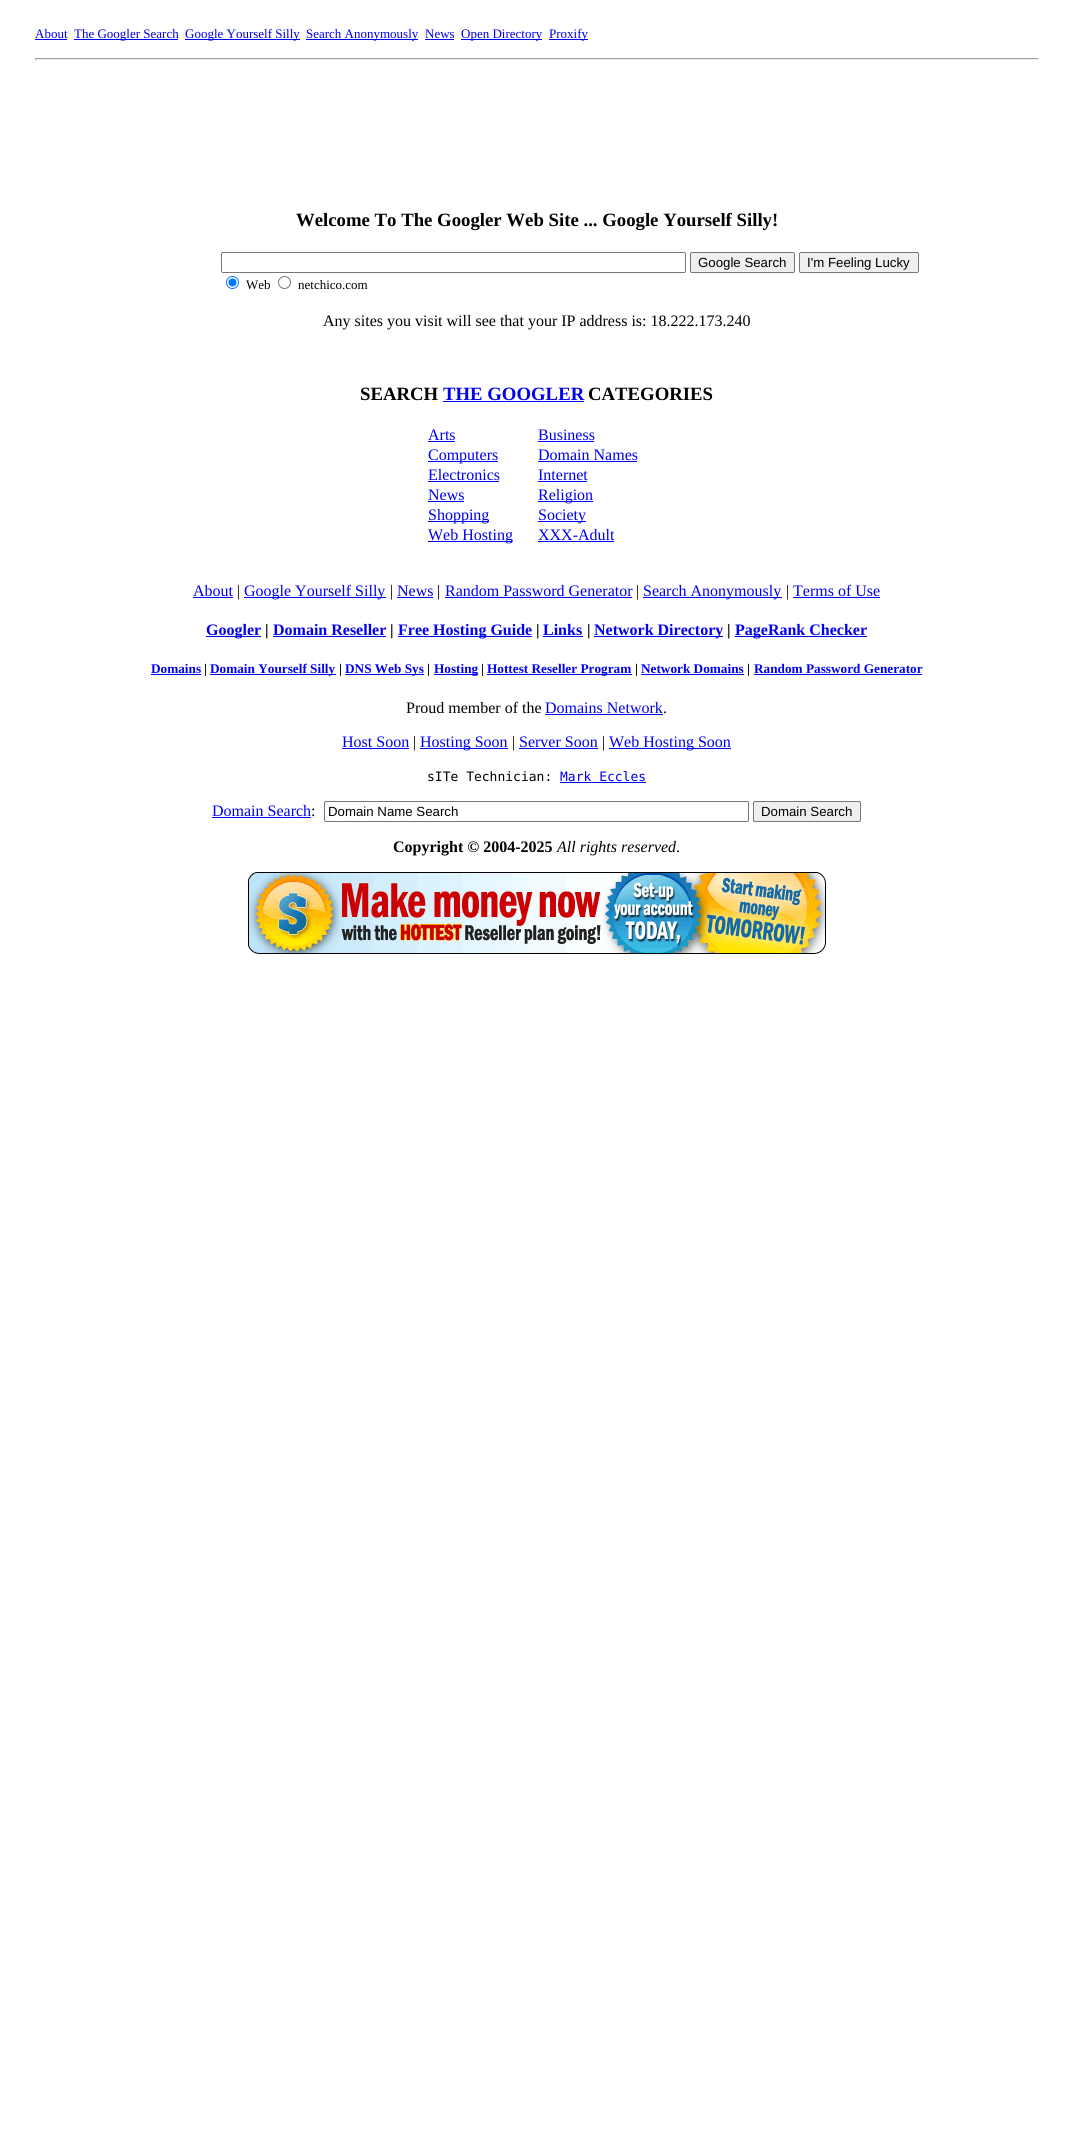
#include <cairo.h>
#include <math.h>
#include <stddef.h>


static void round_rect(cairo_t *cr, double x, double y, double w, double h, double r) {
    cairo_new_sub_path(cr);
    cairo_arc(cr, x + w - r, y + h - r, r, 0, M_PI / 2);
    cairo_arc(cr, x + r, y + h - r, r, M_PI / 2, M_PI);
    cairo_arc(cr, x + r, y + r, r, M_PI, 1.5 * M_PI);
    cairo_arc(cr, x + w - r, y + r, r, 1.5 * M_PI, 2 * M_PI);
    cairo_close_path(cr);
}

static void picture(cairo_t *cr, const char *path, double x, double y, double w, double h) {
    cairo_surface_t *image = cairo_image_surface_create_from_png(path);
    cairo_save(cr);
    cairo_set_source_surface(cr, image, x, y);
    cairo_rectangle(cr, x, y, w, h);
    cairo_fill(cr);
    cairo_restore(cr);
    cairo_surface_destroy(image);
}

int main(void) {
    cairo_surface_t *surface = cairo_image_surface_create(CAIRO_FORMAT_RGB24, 1073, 2134);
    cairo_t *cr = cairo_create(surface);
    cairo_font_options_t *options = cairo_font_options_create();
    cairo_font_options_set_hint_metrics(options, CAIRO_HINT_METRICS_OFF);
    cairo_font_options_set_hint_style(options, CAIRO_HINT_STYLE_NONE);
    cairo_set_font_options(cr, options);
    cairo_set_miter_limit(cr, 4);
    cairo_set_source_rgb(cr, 1, 1, 1);
    cairo_paint(cr);
    cairo_select_font_face(cr, "Liberation Serif", CAIRO_FONT_SLANT_NORMAL, CAIRO_FONT_WEIGHT_NORMAL);
    cairo_set_font_size(cr, 13);
    cairo_set_source_rgb(cr, 0, 0, 0.933);
    cairo_move_to(cr, 35, 38);
    cairo_show_text(cr, "About");
    cairo_rectangle(cr, 35, 39, 32, 1);
    cairo_fill(cr);
    cairo_rectangle(cr, 74, 39, 104, 1);
    cairo_fill(cr);
    cairo_move_to(cr, 74, 38);
    cairo_show_text(cr, "The Googler Search");
    cairo_rectangle(cr, 185, 39, 115, 1);
    cairo_fill(cr);
    cairo_move_to(cr, 185, 38);
    cairo_show_text(cr, "Google Yourself Silly");
    cairo_rectangle(cr, 306, 39, 112, 1);
    cairo_fill(cr);
    cairo_move_to(cr, 306, 38);
    cairo_show_text(cr, "Search Anonymously");
    cairo_move_to(cr, 425, 38);
    cairo_show_text(cr, "News");
    cairo_rectangle(cr, 425, 39, 29, 1);
    cairo_fill(cr);
    cairo_rectangle(cr, 461, 39, 81, 1);
    cairo_fill(cr);
    cairo_move_to(cr, 461, 38);
    cairo_show_text(cr, "Open Directory");
    cairo_rectangle(cr, 549, 39, 39, 1);
    cairo_fill(cr);
    cairo_move_to(cr, 549, 38);
    cairo_show_text(cr, "Proxify");
    cairo_set_source_rgb(cr, 0.624, 0.624, 0.624);
    cairo_rectangle(cr, 35, 58, 1004, 1);
    cairo_fill(cr);
    cairo_set_source_rgb(cr, 0.933, 0.933, 0.933);
    cairo_rectangle(cr, 1038, 58, 1, 2);
    cairo_fill(cr);
    cairo_rectangle(cr, 35, 59, 1004, 1);
    cairo_fill(cr);
    cairo_set_source_rgb(cr, 0.624, 0.624, 0.624);
    cairo_rectangle(cr, 35, 58, 1, 2);
    cairo_fill(cr);
    cairo_select_font_face(cr, "Liberation Serif", CAIRO_FONT_SLANT_NORMAL, CAIRO_FONT_WEIGHT_BOLD);
    cairo_set_font_size(cr, 18.75);
    cairo_set_source_rgb(cr, 0, 0, 0);
    cairo_move_to(cr, 296, 226);
    cairo_show_text(cr, "Welcome To The Googler Web Site ... Google Yourself Silly!");
    round_rect(cr, 221.5, 252.5, 464, 20, 1.5);
    cairo_set_source_rgb(cr, 0.463, 0.463, 0.463);
    cairo_set_line_width(cr, 1);
    cairo_stroke(cr);
    cairo_set_source_rgb(cr, 0.937, 0.937, 0.937);
    round_rect(cr, 690.5, 252.5, 104, 20, 1.5);
    cairo_fill_preserve(cr);
    cairo_set_source_rgb(cr, 0.463, 0.463, 0.463);
    cairo_stroke(cr);
    cairo_select_font_face(cr, "Liberation Sans", CAIRO_FONT_SLANT_NORMAL, CAIRO_FONT_WEIGHT_NORMAL);
    cairo_set_font_size(cr, 13.25);
    cairo_set_source_rgb(cr, 0, 0, 0);
    cairo_move_to(cr, 698, 267);
    cairo_show_text(cr, "Google Search");
    cairo_set_source_rgb(cr, 0.937, 0.937, 0.937);
    round_rect(cr, 799.5, 252.5, 119, 20, 1.5);
    cairo_fill_preserve(cr);
    cairo_set_source_rgb(cr, 0.463, 0.463, 0.463);
    cairo_stroke(cr);
    cairo_set_source_rgb(cr, 0, 0, 0);
    cairo_move_to(cr, 807, 267);
    cairo_show_text(cr, "I'm Feeling Lucky");
    cairo_new_path(cr);
    cairo_arc(cr, 232.5, 282.5, 6, 0, 2 * M_PI);
    cairo_set_source_rgb(cr, 0, 0.459, 1);
    cairo_stroke(cr);
    cairo_arc(cr, 232.5, 282.5, 4, 0, 2 * M_PI);
    cairo_fill(cr);
    cairo_select_font_face(cr, "Liberation Serif", CAIRO_FONT_SLANT_NORMAL, CAIRO_FONT_WEIGHT_NORMAL);
    cairo_set_font_size(cr, 13);
    cairo_set_source_rgb(cr, 0, 0, 0);
    cairo_move_to(cr, 246, 289);
    cairo_show_text(cr, "Web");
    cairo_new_path(cr);
    cairo_arc(cr, 284.5, 282.5, 6, 0, 2 * M_PI);
    cairo_set_source_rgb(cr, 0.463, 0.463, 0.463);
    cairo_stroke(cr);
    cairo_set_source_rgb(cr, 0, 0, 0);
    cairo_move_to(cr, 298, 289);
    cairo_show_text(cr, "netchico.com");
    cairo_set_font_size(cr, 16);
    cairo_move_to(cr, 323, 326);
    cairo_show_text(cr, "Any sites you visit will see that your IP address is: 18.222.173.240");
    cairo_select_font_face(cr, "Liberation Serif", CAIRO_FONT_SLANT_NORMAL, CAIRO_FONT_WEIGHT_BOLD);
    cairo_set_font_size(cr, 18.75);
    cairo_move_to(cr, 360, 400);
    cairo_show_text(cr, "SEARCH");
    cairo_set_source_rgb(cr, 0, 0, 0.933);
    cairo_move_to(cr, 443, 400);
    cairo_show_text(cr, "THE GOOGLER");
    cairo_rectangle(cr, 443, 401, 141, 1);
    cairo_fill(cr);
    cairo_set_source_rgb(cr, 0, 0, 0);
    cairo_move_to(cr, 588, 400);
    cairo_show_text(cr, "CATEGORIES");
    cairo_select_font_face(cr, "Liberation Serif", CAIRO_FONT_SLANT_NORMAL, CAIRO_FONT_WEIGHT_NORMAL);
    cairo_set_font_size(cr, 16);
    cairo_set_source_rgb(cr, 0, 0, 0.933);
    cairo_move_to(cr, 428, 440);
    cairo_show_text(cr, "Arts");
    cairo_rectangle(cr, 428, 441, 27, 1);
    cairo_fill(cr);
    cairo_move_to(cr, 538, 440);
    cairo_show_text(cr, "Business");
    cairo_rectangle(cr, 538, 441, 56, 1);
    cairo_fill(cr);
    cairo_rectangle(cr, 428, 461, 70, 1);
    cairo_fill(cr);
    cairo_move_to(cr, 428, 460);
    cairo_show_text(cr, "Computers");
    cairo_move_to(cr, 538, 460);
    cairo_show_text(cr, "Domain Names");
    cairo_rectangle(cr, 538, 461, 99, 1);
    cairo_fill(cr);
    cairo_move_to(cr, 428, 480);
    cairo_show_text(cr, "Electronics");
    cairo_rectangle(cr, 428, 481, 71, 1);
    cairo_fill(cr);
    cairo_move_to(cr, 538, 480);
    cairo_show_text(cr, "Internet");
    cairo_rectangle(cr, 538, 481, 49, 1);
    cairo_fill(cr);
    cairo_move_to(cr, 428, 500);
    cairo_show_text(cr, "News");
    cairo_rectangle(cr, 428, 501, 36, 1);
    cairo_fill(cr);
    cairo_rectangle(cr, 538, 501, 55, 1);
    cairo_fill(cr);
    cairo_move_to(cr, 538, 500);
    cairo_show_text(cr, "Religion");
    cairo_rectangle(cr, 428, 521, 61, 1);
    cairo_fill(cr);
    cairo_move_to(cr, 428, 520);
    cairo_show_text(cr, "Shopping");
    cairo_rectangle(cr, 538, 521, 48, 1);
    cairo_fill(cr);
    cairo_move_to(cr, 538, 520);
    cairo_show_text(cr, "Society");
    cairo_rectangle(cr, 428, 541, 84, 1);
    cairo_fill(cr);
    cairo_move_to(cr, 428, 540);
    cairo_show_text(cr, "Web Hosting");
    cairo_move_to(cr, 538, 540);
    cairo_show_text(cr, "XXX-Adult");
    cairo_rectangle(cr, 538, 541, 76, 1);
    cairo_fill(cr);
    cairo_move_to(cr, 193, 596);
    cairo_show_text(cr, "About");
    cairo_rectangle(cr, 193, 597, 40, 1);
    cairo_fill(cr);
    cairo_set_source_rgb(cr, 0, 0, 0);
    cairo_move_to(cr, 237, 596);
    cairo_show_text(cr, "|");
    cairo_set_source_rgb(cr, 0, 0, 0.933);
    cairo_rectangle(cr, 244, 597, 142, 1);
    cairo_fill(cr);
    cairo_move_to(cr, 244, 596);
    cairo_show_text(cr, "Google Yourself Silly");
    cairo_set_source_rgb(cr, 0, 0, 0);
    cairo_move_to(cr, 390, 596);
    cairo_show_text(cr, "|");
    cairo_set_source_rgb(cr, 0, 0, 0.933);
    cairo_move_to(cr, 397, 596);
    cairo_show_text(cr, "News");
    cairo_rectangle(cr, 397, 597, 36, 1);
    cairo_fill(cr);
    cairo_set_source_rgb(cr, 0, 0, 0);
    cairo_move_to(cr, 437, 596);
    cairo_show_text(cr, "|");
    cairo_set_source_rgb(cr, 0, 0, 0.933);
    cairo_move_to(cr, 445, 596);
    cairo_show_text(cr, "Random Password Generator");
    cairo_rectangle(cr, 445, 597, 187, 1);
    cairo_fill(cr);
    cairo_set_source_rgb(cr, 0, 0, 0);
    cairo_move_to(cr, 636, 596);
    cairo_show_text(cr, "|");
    cairo_set_source_rgb(cr, 0, 0, 0.933);
    cairo_rectangle(cr, 643, 597, 139, 1);
    cairo_fill(cr);
    cairo_move_to(cr, 643, 596);
    cairo_show_text(cr, "Search Anonymously");
    cairo_set_source_rgb(cr, 0, 0, 0);
    cairo_move_to(cr, 786, 596);
    cairo_show_text(cr, "|");
    cairo_set_source_rgb(cr, 0, 0, 0.933);
    cairo_move_to(cr, 793, 596);
    cairo_show_text(cr, "Terms of Use");
    cairo_rectangle(cr, 793, 597, 87, 1);
    cairo_fill(cr);
    cairo_rectangle(cr, 206, 636, 55, 1);
    cairo_fill(cr);
    cairo_select_font_face(cr, "Liberation Serif", CAIRO_FONT_SLANT_NORMAL, CAIRO_FONT_WEIGHT_BOLD);
    cairo_move_to(cr, 206, 635);
    cairo_show_text(cr, "Googler");
    cairo_set_source_rgb(cr, 0, 0, 0);
    cairo_move_to(cr, 265, 635);
    cairo_show_text(cr, "|");
    cairo_set_source_rgb(cr, 0, 0, 0.933);
    cairo_move_to(cr, 273, 635);
    cairo_show_text(cr, "Domain Reseller");
    cairo_rectangle(cr, 273, 636, 113, 1);
    cairo_fill(cr);
    cairo_set_source_rgb(cr, 0, 0, 0);
    cairo_move_to(cr, 390, 635);
    cairo_show_text(cr, "|");
    cairo_set_source_rgb(cr, 0, 0, 0.933);
    cairo_rectangle(cr, 398, 636, 134, 1);
    cairo_fill(cr);
    cairo_move_to(cr, 398, 635);
    cairo_show_text(cr, "Free Hosting Guide");
    cairo_set_source_rgb(cr, 0, 0, 0);
    cairo_move_to(cr, 536, 635);
    cairo_show_text(cr, "|");
    cairo_set_source_rgb(cr, 0, 0, 0.933);
    cairo_move_to(cr, 543, 635);
    cairo_show_text(cr, "Links");
    cairo_rectangle(cr, 543, 636, 40, 1);
    cairo_fill(cr);
    cairo_set_source_rgb(cr, 0, 0, 0);
    cairo_move_to(cr, 587, 635);
    cairo_show_text(cr, "|");
    cairo_set_source_rgb(cr, 0, 0, 0.933);
    cairo_rectangle(cr, 594, 636, 129, 1);
    cairo_fill(cr);
    cairo_move_to(cr, 594, 635);
    cairo_show_text(cr, "Network Directory");
    cairo_set_source_rgb(cr, 0, 0, 0);
    cairo_move_to(cr, 727, 635);
    cairo_show_text(cr, "|");
    cairo_set_source_rgb(cr, 0, 0, 0.933);
    cairo_rectangle(cr, 735, 636, 132, 1);
    cairo_fill(cr);
    cairo_move_to(cr, 735, 635);
    cairo_show_text(cr, "PageRank Checker");
    cairo_set_font_size(cr, 13.25);
    cairo_move_to(cr, 151, 673);
    cairo_show_text(cr, "Domains");
    cairo_rectangle(cr, 151, 674, 50, 1);
    cairo_fill(cr);
    cairo_set_source_rgb(cr, 0, 0, 0);
    cairo_move_to(cr, 204, 673);
    cairo_show_text(cr, "|");
    cairo_set_source_rgb(cr, 0, 0, 0.933);
    cairo_rectangle(cr, 210, 674, 126, 1);
    cairo_fill(cr);
    cairo_move_to(cr, 210, 673);
    cairo_show_text(cr, "Domain Yourself Silly");
    cairo_set_source_rgb(cr, 0, 0, 0);
    cairo_move_to(cr, 339, 673);
    cairo_show_text(cr, "|");
    cairo_set_source_rgb(cr, 0, 0, 0.933);
    cairo_rectangle(cr, 345, 674, 79, 1);
    cairo_fill(cr);
    cairo_move_to(cr, 345, 673);
    cairo_show_text(cr, "DNS Web Sys");
    cairo_set_source_rgb(cr, 0, 0, 0);
    cairo_move_to(cr, 427, 673);
    cairo_show_text(cr, "|");
    cairo_set_source_rgb(cr, 0, 0, 0.933);
    cairo_rectangle(cr, 434, 674, 44, 1);
    cairo_fill(cr);
    cairo_move_to(cr, 434, 673);
    cairo_show_text(cr, "Hosting");
    cairo_set_source_rgb(cr, 0, 0, 0);
    cairo_move_to(cr, 481, 673);
    cairo_show_text(cr, "|");
    cairo_set_source_rgb(cr, 0, 0, 0.933);
    cairo_rectangle(cr, 487, 674, 145, 1);
    cairo_fill(cr);
    cairo_move_to(cr, 487, 673);
    cairo_show_text(cr, "Hottest Reseller Program");
    cairo_set_source_rgb(cr, 0, 0, 0);
    cairo_move_to(cr, 635, 673);
    cairo_show_text(cr, "|");
    cairo_set_source_rgb(cr, 0, 0, 0.933);
    cairo_move_to(cr, 641, 673);
    cairo_show_text(cr, "Network Domains");
    cairo_rectangle(cr, 641, 674, 103, 1);
    cairo_fill(cr);
    cairo_set_source_rgb(cr, 0, 0, 0);
    cairo_move_to(cr, 747, 673);
    cairo_show_text(cr, "|");
    cairo_set_source_rgb(cr, 0, 0, 0.933);
    cairo_move_to(cr, 754, 673);
    cairo_show_text(cr, "Random Password Generator");
    cairo_rectangle(cr, 754, 674, 168, 1);
    cairo_fill(cr);
    cairo_select_font_face(cr, "Liberation Serif", CAIRO_FONT_SLANT_NORMAL, CAIRO_FONT_WEIGHT_NORMAL);
    cairo_set_font_size(cr, 16);
    cairo_set_source_rgb(cr, 0, 0, 0);
    cairo_move_to(cr, 406, 713);
    cairo_show_text(cr, "Proud member of the");
    cairo_set_source_rgb(cr, 0, 0, 0.933);
    cairo_move_to(cr, 545, 713);
    cairo_show_text(cr, "Domains Network");
    cairo_rectangle(cr, 545, 714, 118, 1);
    cairo_fill(cr);
    cairo_set_source_rgb(cr, 0, 0, 0);
    cairo_move_to(cr, 663, 713);
    cairo_show_text(cr, ".");
    cairo_set_source_rgb(cr, 0, 0, 0.933);
    cairo_move_to(cr, 342, 747);
    cairo_show_text(cr, "Host Soon");
    cairo_rectangle(cr, 342, 748, 67, 1);
    cairo_fill(cr);
    cairo_set_source_rgb(cr, 0, 0, 0);
    cairo_move_to(cr, 413, 747);
    cairo_show_text(cr, "|");
    cairo_set_source_rgb(cr, 0, 0, 0.933);
    cairo_rectangle(cr, 420, 748, 88, 1);
    cairo_fill(cr);
    cairo_move_to(cr, 420, 747);
    cairo_show_text(cr, "Hosting Soon");
    cairo_set_source_rgb(cr, 0, 0, 0);
    cairo_move_to(cr, 512, 747);
    cairo_show_text(cr, "|");
    cairo_set_source_rgb(cr, 0, 0, 0.933);
    cairo_move_to(cr, 519, 747);
    cairo_show_text(cr, "Server Soon");
    cairo_rectangle(cr, 519, 748, 79, 1);
    cairo_fill(cr);
    cairo_set_source_rgb(cr, 0, 0, 0);
    cairo_move_to(cr, 602, 747);
    cairo_show_text(cr, "|");
    cairo_set_source_rgb(cr, 0, 0, 0.933);
    cairo_rectangle(cr, 609, 748, 122, 1);
    cairo_fill(cr);
    cairo_move_to(cr, 609, 747);
    cairo_show_text(cr, "Web Hosting Soon");
    cairo_select_font_face(cr, "DejaVu Sans Mono", CAIRO_FONT_SLANT_NORMAL, CAIRO_FONT_WEIGHT_NORMAL);
    cairo_set_font_size(cr, 13);
    cairo_set_source_rgb(cr, 0, 0, 0);
    cairo_move_to(cr, 427, 781);
    cairo_show_text(cr, "sITe Technician:");
    cairo_set_source_rgb(cr, 0, 0, 0.933);
    cairo_move_to(cr, 560, 781);
    cairo_show_text(cr, "Mark Eccles");
    cairo_rectangle(cr, 560, 782, 86, 1);
    cairo_fill(cr);
    cairo_select_font_face(cr, "Liberation Serif", CAIRO_FONT_SLANT_NORMAL, CAIRO_FONT_WEIGHT_NORMAL);
    cairo_set_font_size(cr, 16);
    cairo_move_to(cr, 212, 816);
    cairo_show_text(cr, "Domain Search");
    cairo_rectangle(cr, 212, 817, 99, 1);
    cairo_fill(cr);
    cairo_set_source_rgb(cr, 0, 0, 0);
    cairo_move_to(cr, 311, 816);
    cairo_show_text(cr, ":");
    round_rect(cr, 324.5, 801.5, 424, 20, 1.5);
    cairo_set_source_rgb(cr, 0.463, 0.463, 0.463);
    cairo_stroke(cr);
    cairo_select_font_face(cr, "Liberation Sans", CAIRO_FONT_SLANT_NORMAL, CAIRO_FONT_WEIGHT_NORMAL);
    cairo_set_font_size(cr, 13.25);
    cairo_set_source_rgb(cr, 0, 0, 0);
    cairo_move_to(cr, 328, 816);
    cairo_show_text(cr, "Domain Name Search");
    cairo_set_source_rgb(cr, 0.937, 0.937, 0.937);
    round_rect(cr, 753.5, 801.5, 107, 20, 1.5);
    cairo_fill_preserve(cr);
    cairo_set_source_rgb(cr, 0.463, 0.463, 0.463);
    cairo_stroke(cr);
    cairo_set_source_rgb(cr, 0, 0, 0);
    cairo_move_to(cr, 761, 816);
    cairo_show_text(cr, "Domain Search");
    cairo_select_font_face(cr, "Liberation Serif", CAIRO_FONT_SLANT_NORMAL, CAIRO_FONT_WEIGHT_BOLD);
    cairo_set_font_size(cr, 16);
    cairo_move_to(cr, 393, 852);
    cairo_show_text(cr, "Copyright © 2004-2025");
    cairo_select_font_face(cr, "Liberation Serif", CAIRO_FONT_SLANT_ITALIC, CAIRO_FONT_WEIGHT_NORMAL);
    cairo_move_to(cr, 557, 852);
    cairo_show_text(cr, "All rights reserved");
    cairo_select_font_face(cr, "Liberation Serif", CAIRO_FONT_SLANT_NORMAL, CAIRO_FONT_WEIGHT_NORMAL);
    cairo_move_to(cr, 676, 852);
    cairo_show_text(cr, ".");
    picture(cr, "img1.png", 248, 872, 578, 82);
    cairo_surface_write_to_png(surface, "page.png");
    cairo_font_options_destroy(options);
    cairo_destroy(cr);
    cairo_surface_destroy(surface);
    return 0;
}
